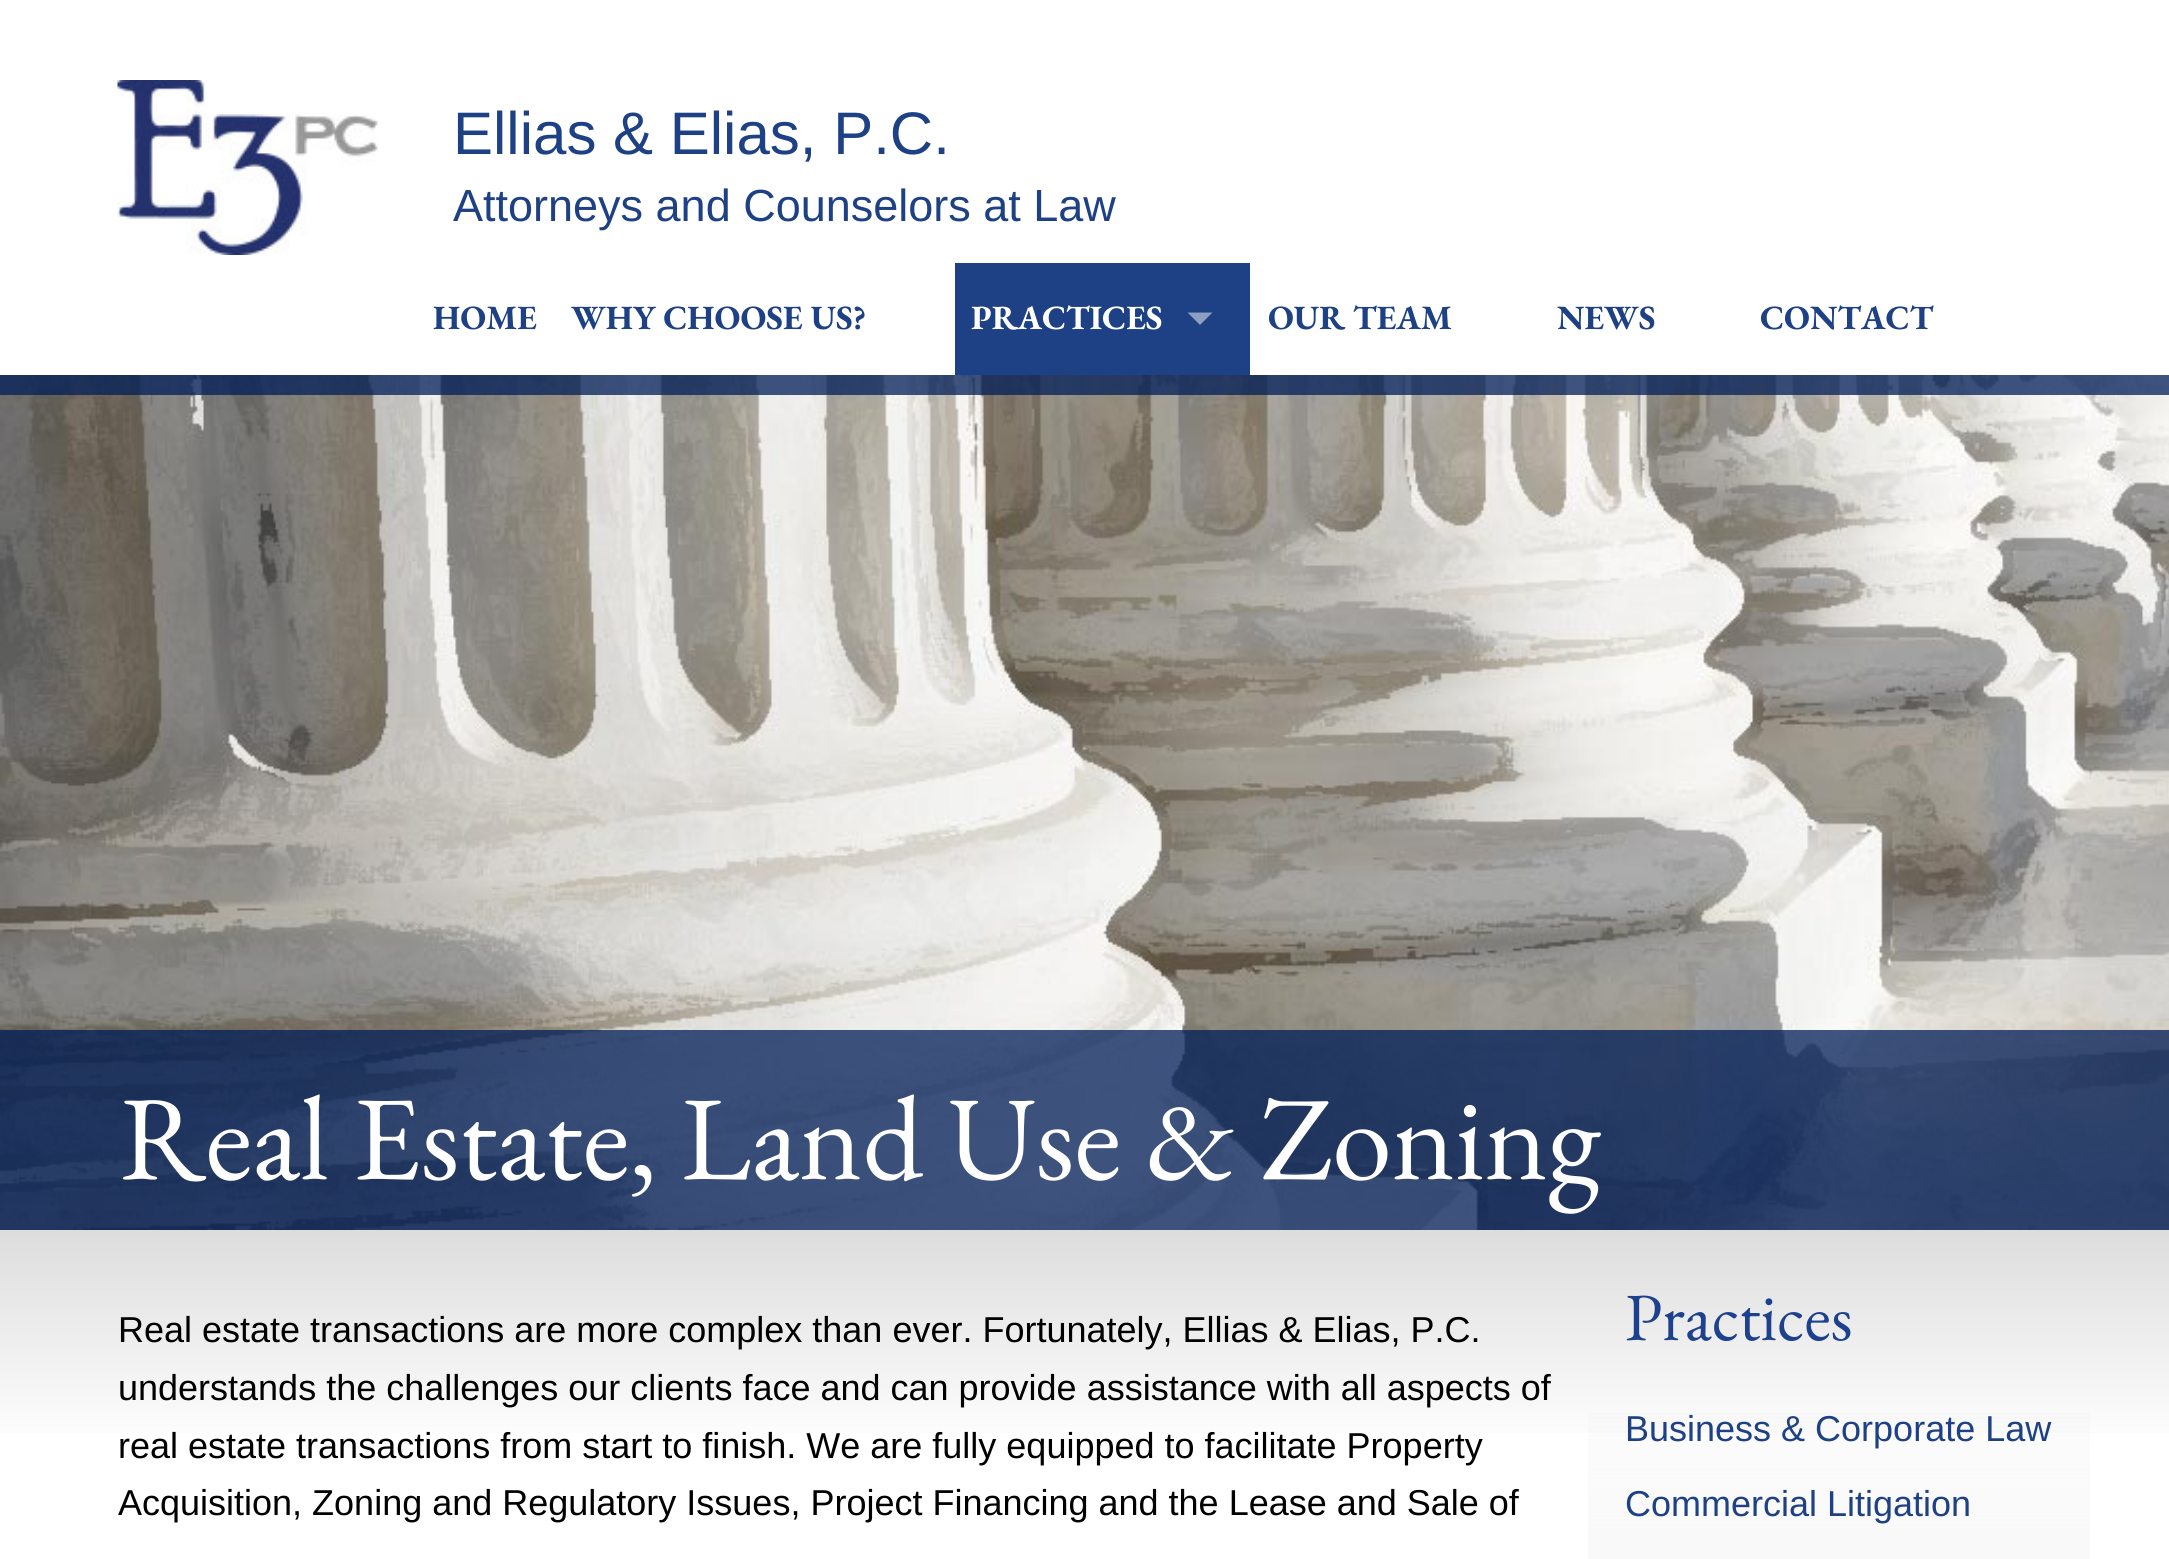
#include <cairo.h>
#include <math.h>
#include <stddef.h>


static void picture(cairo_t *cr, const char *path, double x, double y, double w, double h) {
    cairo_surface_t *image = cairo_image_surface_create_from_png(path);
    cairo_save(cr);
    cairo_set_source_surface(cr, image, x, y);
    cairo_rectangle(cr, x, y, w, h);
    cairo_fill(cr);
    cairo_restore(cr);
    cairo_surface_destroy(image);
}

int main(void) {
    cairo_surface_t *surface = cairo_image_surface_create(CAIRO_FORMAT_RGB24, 2169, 1559);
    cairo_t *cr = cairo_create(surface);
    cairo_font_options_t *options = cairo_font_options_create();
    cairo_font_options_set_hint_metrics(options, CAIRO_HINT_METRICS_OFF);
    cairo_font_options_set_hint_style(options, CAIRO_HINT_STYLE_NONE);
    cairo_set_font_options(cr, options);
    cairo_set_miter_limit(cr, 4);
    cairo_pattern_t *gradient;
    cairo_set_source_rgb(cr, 1, 1, 1);
    cairo_paint(cr);
    picture(cr, "img1.png", 117, 80, 261, 175);
    cairo_select_font_face(cr, "Liberation Sans", CAIRO_FONT_SLANT_NORMAL, CAIRO_FONT_WEIGHT_NORMAL);
    cairo_set_font_size(cr, 60);
    cairo_set_source_rgb(cr, 0.114, 0.255, 0.518);
    cairo_move_to(cr, 453, 154);
    cairo_show_text(cr, "Ellias & Elias, P.C.");
    cairo_set_font_size(cr, 45);
    cairo_move_to(cr, 453, 221);
    cairo_show_text(cr, "Attorneys and Counselors at Law");
    cairo_select_font_face(cr, "EB Garamond", CAIRO_FONT_SLANT_NORMAL, CAIRO_FONT_WEIGHT_BOLD);
    cairo_set_font_size(cr, 34);
    cairo_move_to(cr, 433, 329);
    cairo_show_text(cr, "HOME");
    cairo_move_to(cr, 571, 329);
    cairo_show_text(cr, "WHY CHOOSE US?");
    cairo_rectangle(cr, 955, 263, 295, 112);
    cairo_fill(cr);
    cairo_set_source_rgb(cr, 1, 1, 1);
    cairo_move_to(cr, 971, 329);
    cairo_show_text(cr, "PRACTICES");
    cairo_set_source_rgb(cr, 0.557, 0.627, 0.761);
    cairo_new_path(cr);
    cairo_move_to(cr, 1187.5, 312.5);
    cairo_line_to(cr, 1212.5, 312.5);
    cairo_line_to(cr, 1200, 325);
    cairo_close_path(cr);
    cairo_fill(cr);
    cairo_set_source_rgb(cr, 0.114, 0.255, 0.518);
    cairo_move_to(cr, 1268, 329);
    cairo_show_text(cr, "OUR TEAM");
    cairo_move_to(cr, 1557, 329);
    cairo_show_text(cr, "NEWS");
    cairo_move_to(cr, 1760, 329);
    cairo_show_text(cr, "CONTACT");
    picture(cr, "img2.png", 0, 375, 2169, 855);
    cairo_set_source_rgba(cr, 0, 0.118, 0.341, 0.75);
    cairo_rectangle(cr, 0, 375, 2169, 20);
    cairo_fill(cr);
    cairo_rectangle(cr, 0, 1030, 2169, 200);
    cairo_fill(cr);
    cairo_select_font_face(cr, "EB Garamond", CAIRO_FONT_SLANT_NORMAL, CAIRO_FONT_WEIGHT_NORMAL);
    cairo_set_font_size(cr, 120);
    cairo_set_source_rgb(cr, 1, 1, 1);
    cairo_move_to(cr, 120, 1179);
    cairo_show_text(cr, "Real Estate, Land Use & Zoning");
    gradient = cairo_pattern_create_linear(1085, 1230, 1085, 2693);
    cairo_pattern_add_color_stop_rgba(gradient, 0, 0.867, 0.867, 0.867, 1);
    cairo_pattern_add_color_stop_rgba(gradient, 0.15, 1, 1, 1, 1);
    cairo_set_source(cr, gradient);
    cairo_pattern_destroy(gradient);
    cairo_rectangle(cr, 0, 1230, 2169, 203);
    cairo_fill(cr);
    cairo_select_font_face(cr, "Liberation Sans", CAIRO_FONT_SLANT_NORMAL, CAIRO_FONT_WEIGHT_NORMAL);
    cairo_set_font_size(cr, 36);
    cairo_set_source_rgb(cr, 0, 0, 0);
    cairo_move_to(cr, 118, 1342);
    cairo_show_text(cr, "Real estate transactions are more complex than ever. Fortunately, Ellias & Elias, P.C.");
    cairo_move_to(cr, 118, 1400);
    cairo_show_text(cr, "understands the challenges our clients face and can provide assistance with all aspects of");
    cairo_move_to(cr, 118, 1458);
    cairo_show_text(cr, "real estate transactions from start to finish. We are fully equipped to facilitate Property");
    cairo_move_to(cr, 118, 1515);
    cairo_show_text(cr, "Acquisition, Zoning and Regulatory Issues, Project Financing and the Lease and Sale of");
    gradient = cairo_pattern_create_linear(1839, 1270, 1839, 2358);
    cairo_pattern_add_color_stop_rgba(gradient, 0, 0.906, 0.906, 0.906, 0);
    cairo_pattern_add_color_stop_rgba(gradient, 1, 0.906, 0.906, 0.906, 1);
    cairo_set_source(cr, gradient);
    cairo_pattern_destroy(gradient);
    cairo_rectangle(cr, 1588, 1413, 502, 146);
    cairo_fill(cr);
    cairo_select_font_face(cr, "EB Garamond", CAIRO_FONT_SLANT_NORMAL, CAIRO_FONT_WEIGHT_NORMAL);
    cairo_set_font_size(cr, 67.5);
    cairo_set_source_rgb(cr, 0.114, 0.255, 0.553);
    cairo_move_to(cr, 1625, 1340);
    cairo_show_text(cr, "Practices");
    cairo_select_font_face(cr, "Liberation Sans", CAIRO_FONT_SLANT_NORMAL, CAIRO_FONT_WEIGHT_NORMAL);
    cairo_set_font_size(cr, 36);
    cairo_set_source_rgb(cr, 0.114, 0.255, 0.518);
    cairo_move_to(cr, 1625, 1441);
    cairo_show_text(cr, "Business & Corporate Law");
    cairo_move_to(cr, 1625, 1516);
    cairo_show_text(cr, "Commercial Litigation");
    cairo_surface_write_to_png(surface, "page.png");
    cairo_font_options_destroy(options);
    cairo_destroy(cr);
    cairo_surface_destroy(surface);
    return 0;
}
